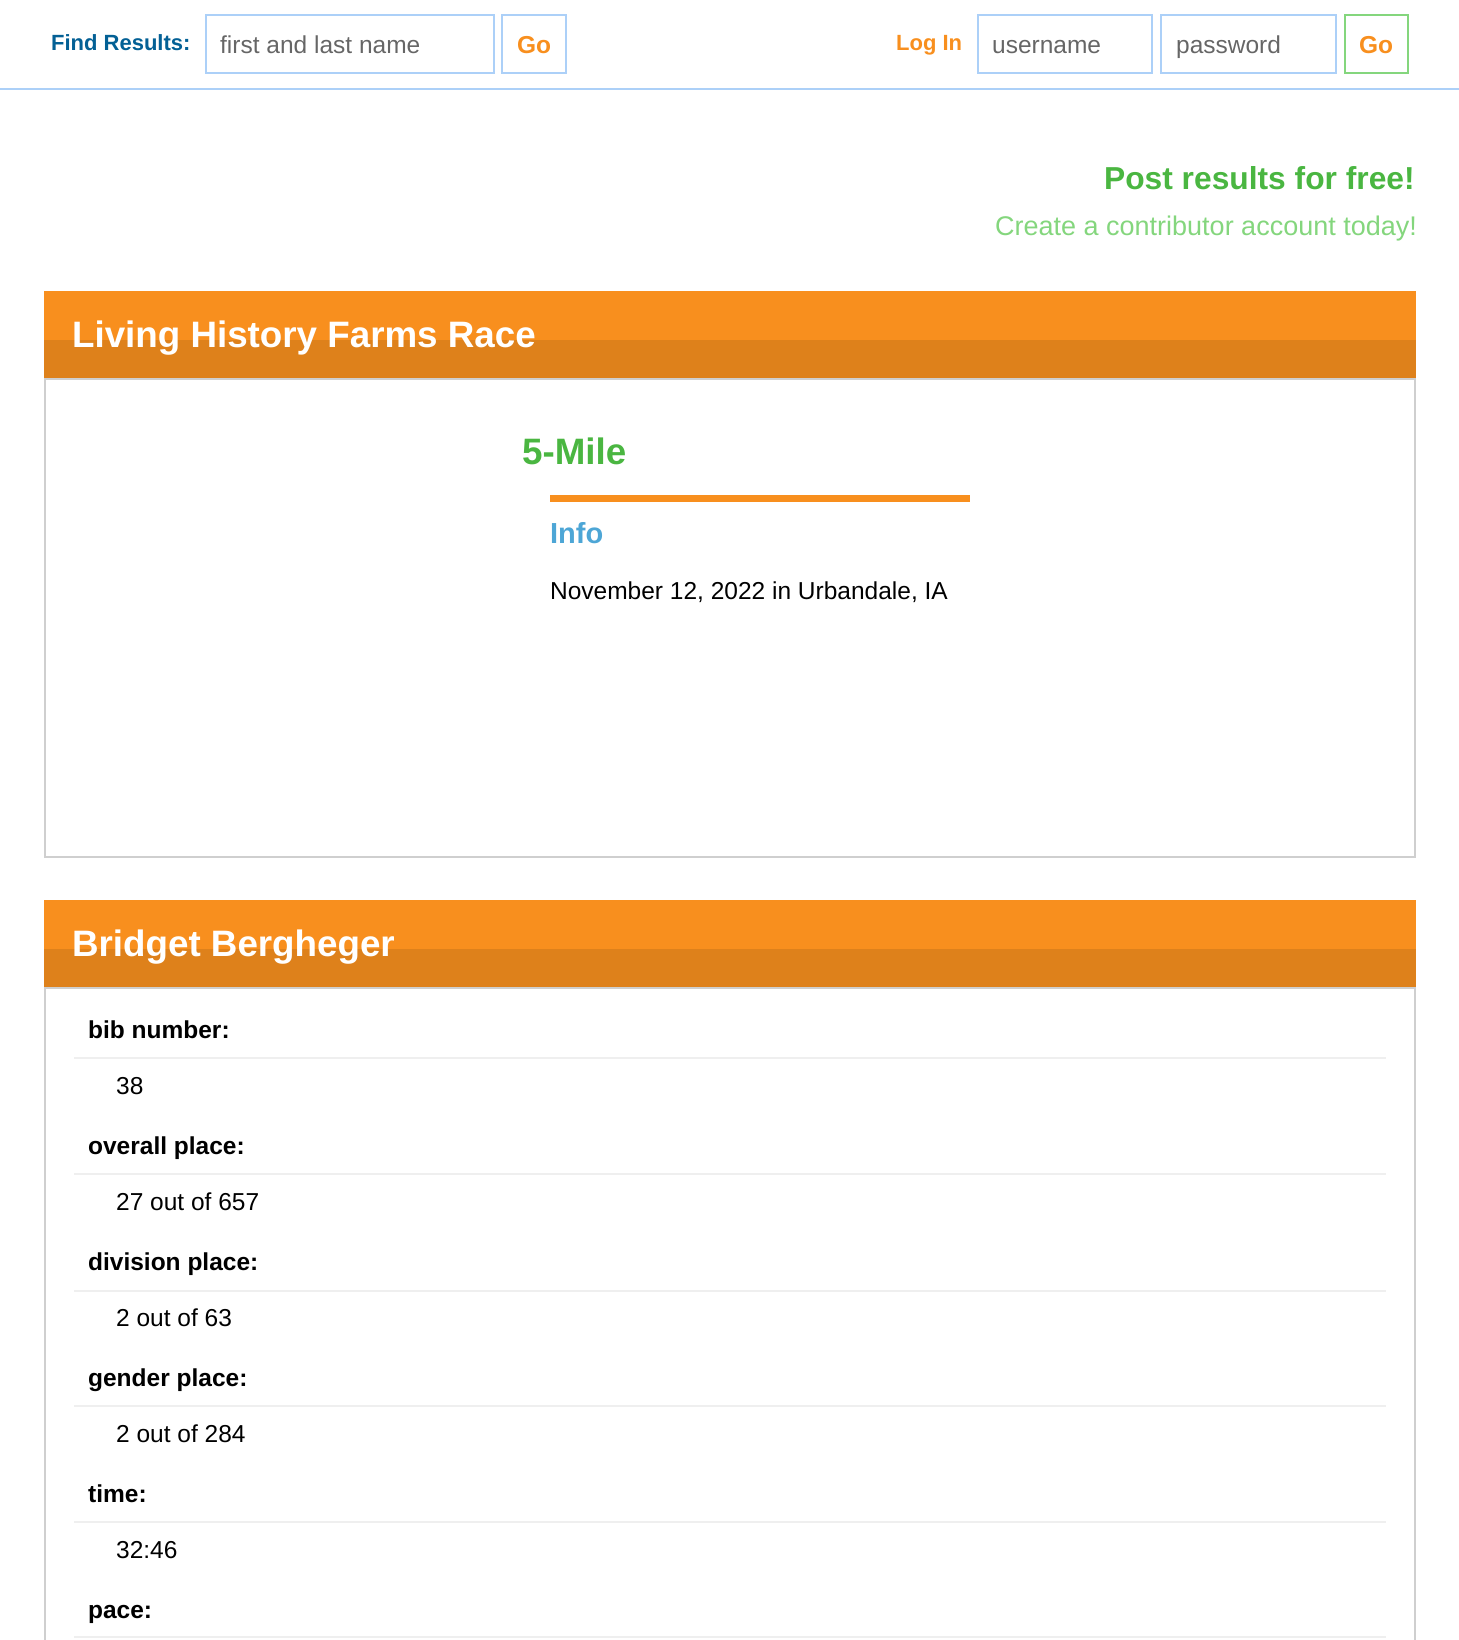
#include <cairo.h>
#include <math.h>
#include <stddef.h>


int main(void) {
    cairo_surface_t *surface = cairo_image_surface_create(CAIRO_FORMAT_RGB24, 1459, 1640);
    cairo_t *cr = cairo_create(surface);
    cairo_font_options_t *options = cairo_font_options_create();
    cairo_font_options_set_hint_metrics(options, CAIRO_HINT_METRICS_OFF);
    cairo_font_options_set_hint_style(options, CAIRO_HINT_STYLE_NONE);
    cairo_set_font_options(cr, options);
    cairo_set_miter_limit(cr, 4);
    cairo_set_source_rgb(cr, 1, 1, 1);
    cairo_paint(cr);
    cairo_set_source_rgb(cr, 0.675, 0.816, 0.969);
    cairo_rectangle(cr, 0, 88, 1459, 2);
    cairo_fill(cr);
    cairo_select_font_face(cr, "Liberation Sans", CAIRO_FONT_SLANT_NORMAL, CAIRO_FONT_WEIGHT_BOLD);
    cairo_set_font_size(cr, 22);
    cairo_set_source_rgb(cr, 0.012, 0.376, 0.584);
    cairo_move_to(cr, 51, 50);
    cairo_show_text(cr, "Find Results:");
    cairo_rectangle(cr, 206, 15, 288, 58);
    cairo_set_source_rgb(cr, 0.675, 0.816, 0.969);
    cairo_stroke(cr);
    cairo_select_font_face(cr, "Liberation Sans", CAIRO_FONT_SLANT_NORMAL, CAIRO_FONT_WEIGHT_NORMAL);
    cairo_set_font_size(cr, 24.5);
    cairo_set_source_rgb(cr, 0.4, 0.4, 0.4);
    cairo_move_to(cr, 220, 53);
    cairo_show_text(cr, "first and last name");
    cairo_rectangle(cr, 502, 15, 64, 58);
    cairo_set_source_rgb(cr, 0.675, 0.816, 0.969);
    cairo_stroke(cr);
    cairo_select_font_face(cr, "Liberation Sans", CAIRO_FONT_SLANT_NORMAL, CAIRO_FONT_WEIGHT_BOLD);
    cairo_set_source_rgb(cr, 0.969, 0.561, 0.118);
    cairo_move_to(cr, 517, 53);
    cairo_show_text(cr, "Go");
    cairo_set_font_size(cr, 22);
    cairo_move_to(cr, 896, 50);
    cairo_show_text(cr, "Log In");
    cairo_rectangle(cr, 978, 15, 174, 58);
    cairo_set_source_rgb(cr, 0.675, 0.816, 0.969);
    cairo_stroke(cr);
    cairo_select_font_face(cr, "Liberation Sans", CAIRO_FONT_SLANT_NORMAL, CAIRO_FONT_WEIGHT_NORMAL);
    cairo_set_font_size(cr, 24.5);
    cairo_set_source_rgb(cr, 0.4, 0.4, 0.4);
    cairo_move_to(cr, 992, 53);
    cairo_show_text(cr, "username");
    cairo_rectangle(cr, 1161, 15, 175, 58);
    cairo_set_source_rgb(cr, 0.675, 0.816, 0.969);
    cairo_stroke(cr);
    cairo_set_source_rgb(cr, 0.4, 0.4, 0.4);
    cairo_move_to(cr, 1176, 53);
    cairo_show_text(cr, "password");
    cairo_rectangle(cr, 1345, 15, 63, 58);
    cairo_set_source_rgb(cr, 0.518, 0.839, 0.49);
    cairo_stroke(cr);
    cairo_select_font_face(cr, "Liberation Sans", CAIRO_FONT_SLANT_NORMAL, CAIRO_FONT_WEIGHT_BOLD);
    cairo_set_source_rgb(cr, 0.969, 0.561, 0.118);
    cairo_move_to(cr, 1359, 53);
    cairo_show_text(cr, "Go");
    cairo_set_font_size(cr, 31.75);
    cairo_set_source_rgb(cr, 0.29, 0.714, 0.255);
    cairo_move_to(cr, 1104, 189);
    cairo_show_text(cr, "Post results for free!");
    cairo_select_font_face(cr, "Liberation Sans", CAIRO_FONT_SLANT_NORMAL, CAIRO_FONT_WEIGHT_NORMAL);
    cairo_set_font_size(cr, 27);
    cairo_set_source_rgb(cr, 0.518, 0.839, 0.49);
    cairo_move_to(cr, 995, 235);
    cairo_show_text(cr, "Create a contributor account today!");
    cairo_set_source_rgb(cr, 0.969, 0.561, 0.118);
    cairo_rectangle(cr, 44, 291, 1372, 49);
    cairo_fill(cr);
    cairo_set_source_rgb(cr, 0.871, 0.506, 0.106);
    cairo_rectangle(cr, 44, 340, 1372, 38);
    cairo_fill(cr);
    cairo_select_font_face(cr, "Liberation Sans", CAIRO_FONT_SLANT_NORMAL, CAIRO_FONT_WEIGHT_BOLD);
    cairo_set_font_size(cr, 36.75);
    cairo_set_source_rgb(cr, 1, 1, 1);
    cairo_move_to(cr, 72, 347);
    cairo_show_text(cr, "Living History Farms Race");
    cairo_rectangle(cr, 45, 379, 1370, 478);
    cairo_set_source_rgb(cr, 0.812, 0.812, 0.812);
    cairo_stroke(cr);
    cairo_set_source_rgb(cr, 0.29, 0.714, 0.255);
    cairo_move_to(cr, 522, 464);
    cairo_show_text(cr, "5-Mile");
    cairo_set_source_rgb(cr, 0.969, 0.561, 0.118);
    cairo_rectangle(cr, 550, 495, 420, 7);
    cairo_fill(cr);
    cairo_set_font_size(cr, 29);
    cairo_set_source_rgb(cr, 0.302, 0.651, 0.839);
    cairo_move_to(cr, 550, 543);
    cairo_show_text(cr, "Info");
    cairo_select_font_face(cr, "Liberation Sans", CAIRO_FONT_SLANT_NORMAL, CAIRO_FONT_WEIGHT_NORMAL);
    cairo_set_font_size(cr, 24.5);
    cairo_set_source_rgb(cr, 0, 0, 0);
    cairo_move_to(cr, 550, 599);
    cairo_show_text(cr, "November 12, 2022 in Urbandale, IA");
    cairo_set_source_rgb(cr, 0.969, 0.561, 0.118);
    cairo_rectangle(cr, 44, 900, 1372, 49);
    cairo_fill(cr);
    cairo_set_source_rgb(cr, 0.871, 0.506, 0.106);
    cairo_rectangle(cr, 44, 949, 1372, 38);
    cairo_fill(cr);
    cairo_select_font_face(cr, "Liberation Sans", CAIRO_FONT_SLANT_NORMAL, CAIRO_FONT_WEIGHT_BOLD);
    cairo_set_font_size(cr, 36.75);
    cairo_set_source_rgb(cr, 1, 1, 1);
    cairo_move_to(cr, 72, 956);
    cairo_show_text(cr, "Bridget Bergheger");
    cairo_rectangle(cr, 45, 988, 1370, 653);
    cairo_set_source_rgb(cr, 0.812, 0.812, 0.812);
    cairo_stroke(cr);
    cairo_set_source_rgb(cr, 0.937, 0.937, 0.937);
    cairo_rectangle(cr, 74, 1057, 1312, 2);
    cairo_fill(cr);
    cairo_set_font_size(cr, 24.5);
    cairo_set_source_rgb(cr, 0, 0, 0);
    cairo_move_to(cr, 88, 1038);
    cairo_show_text(cr, "bib number:");
    cairo_select_font_face(cr, "Liberation Sans", CAIRO_FONT_SLANT_NORMAL, CAIRO_FONT_WEIGHT_NORMAL);
    cairo_move_to(cr, 116, 1094);
    cairo_show_text(cr, "38");
    cairo_set_source_rgb(cr, 0.937, 0.937, 0.937);
    cairo_rectangle(cr, 74, 1173, 1312, 2);
    cairo_fill(cr);
    cairo_select_font_face(cr, "Liberation Sans", CAIRO_FONT_SLANT_NORMAL, CAIRO_FONT_WEIGHT_BOLD);
    cairo_set_source_rgb(cr, 0, 0, 0);
    cairo_move_to(cr, 88, 1154);
    cairo_show_text(cr, "overall place:");
    cairo_select_font_face(cr, "Liberation Sans", CAIRO_FONT_SLANT_NORMAL, CAIRO_FONT_WEIGHT_NORMAL);
    cairo_move_to(cr, 116, 1210);
    cairo_show_text(cr, "27 out of 657");
    cairo_set_source_rgb(cr, 0.937, 0.937, 0.937);
    cairo_rectangle(cr, 74, 1290, 1312, 2);
    cairo_fill(cr);
    cairo_select_font_face(cr, "Liberation Sans", CAIRO_FONT_SLANT_NORMAL, CAIRO_FONT_WEIGHT_BOLD);
    cairo_set_source_rgb(cr, 0, 0, 0);
    cairo_move_to(cr, 88, 1270);
    cairo_show_text(cr, "division place:");
    cairo_select_font_face(cr, "Liberation Sans", CAIRO_FONT_SLANT_NORMAL, CAIRO_FONT_WEIGHT_NORMAL);
    cairo_move_to(cr, 116, 1326);
    cairo_show_text(cr, "2 out of 63");
    cairo_set_source_rgb(cr, 0.937, 0.937, 0.937);
    cairo_rectangle(cr, 74, 1405, 1312, 2);
    cairo_fill(cr);
    cairo_select_font_face(cr, "Liberation Sans", CAIRO_FONT_SLANT_NORMAL, CAIRO_FONT_WEIGHT_BOLD);
    cairo_set_source_rgb(cr, 0, 0, 0);
    cairo_move_to(cr, 88, 1386);
    cairo_show_text(cr, "gender place:");
    cairo_select_font_face(cr, "Liberation Sans", CAIRO_FONT_SLANT_NORMAL, CAIRO_FONT_WEIGHT_NORMAL);
    cairo_move_to(cr, 116, 1442);
    cairo_show_text(cr, "2 out of 284");
    cairo_set_source_rgb(cr, 0.937, 0.937, 0.937);
    cairo_rectangle(cr, 74, 1521, 1312, 2);
    cairo_fill(cr);
    cairo_select_font_face(cr, "Liberation Sans", CAIRO_FONT_SLANT_NORMAL, CAIRO_FONT_WEIGHT_BOLD);
    cairo_set_source_rgb(cr, 0, 0, 0);
    cairo_move_to(cr, 88, 1502);
    cairo_show_text(cr, "time:");
    cairo_select_font_face(cr, "Liberation Sans", CAIRO_FONT_SLANT_NORMAL, CAIRO_FONT_WEIGHT_NORMAL);
    cairo_move_to(cr, 116, 1558);
    cairo_show_text(cr, "32:46");
    cairo_set_source_rgb(cr, 0.937, 0.937, 0.937);
    cairo_rectangle(cr, 74, 1636, 1312, 2);
    cairo_fill(cr);
    cairo_select_font_face(cr, "Liberation Sans", CAIRO_FONT_SLANT_NORMAL, CAIRO_FONT_WEIGHT_BOLD);
    cairo_set_source_rgb(cr, 0, 0, 0);
    cairo_move_to(cr, 88, 1618);
    cairo_show_text(cr, "pace:");
    cairo_surface_write_to_png(surface, "page.png");
    cairo_font_options_destroy(options);
    cairo_destroy(cr);
    cairo_surface_destroy(surface);
    return 0;
}
